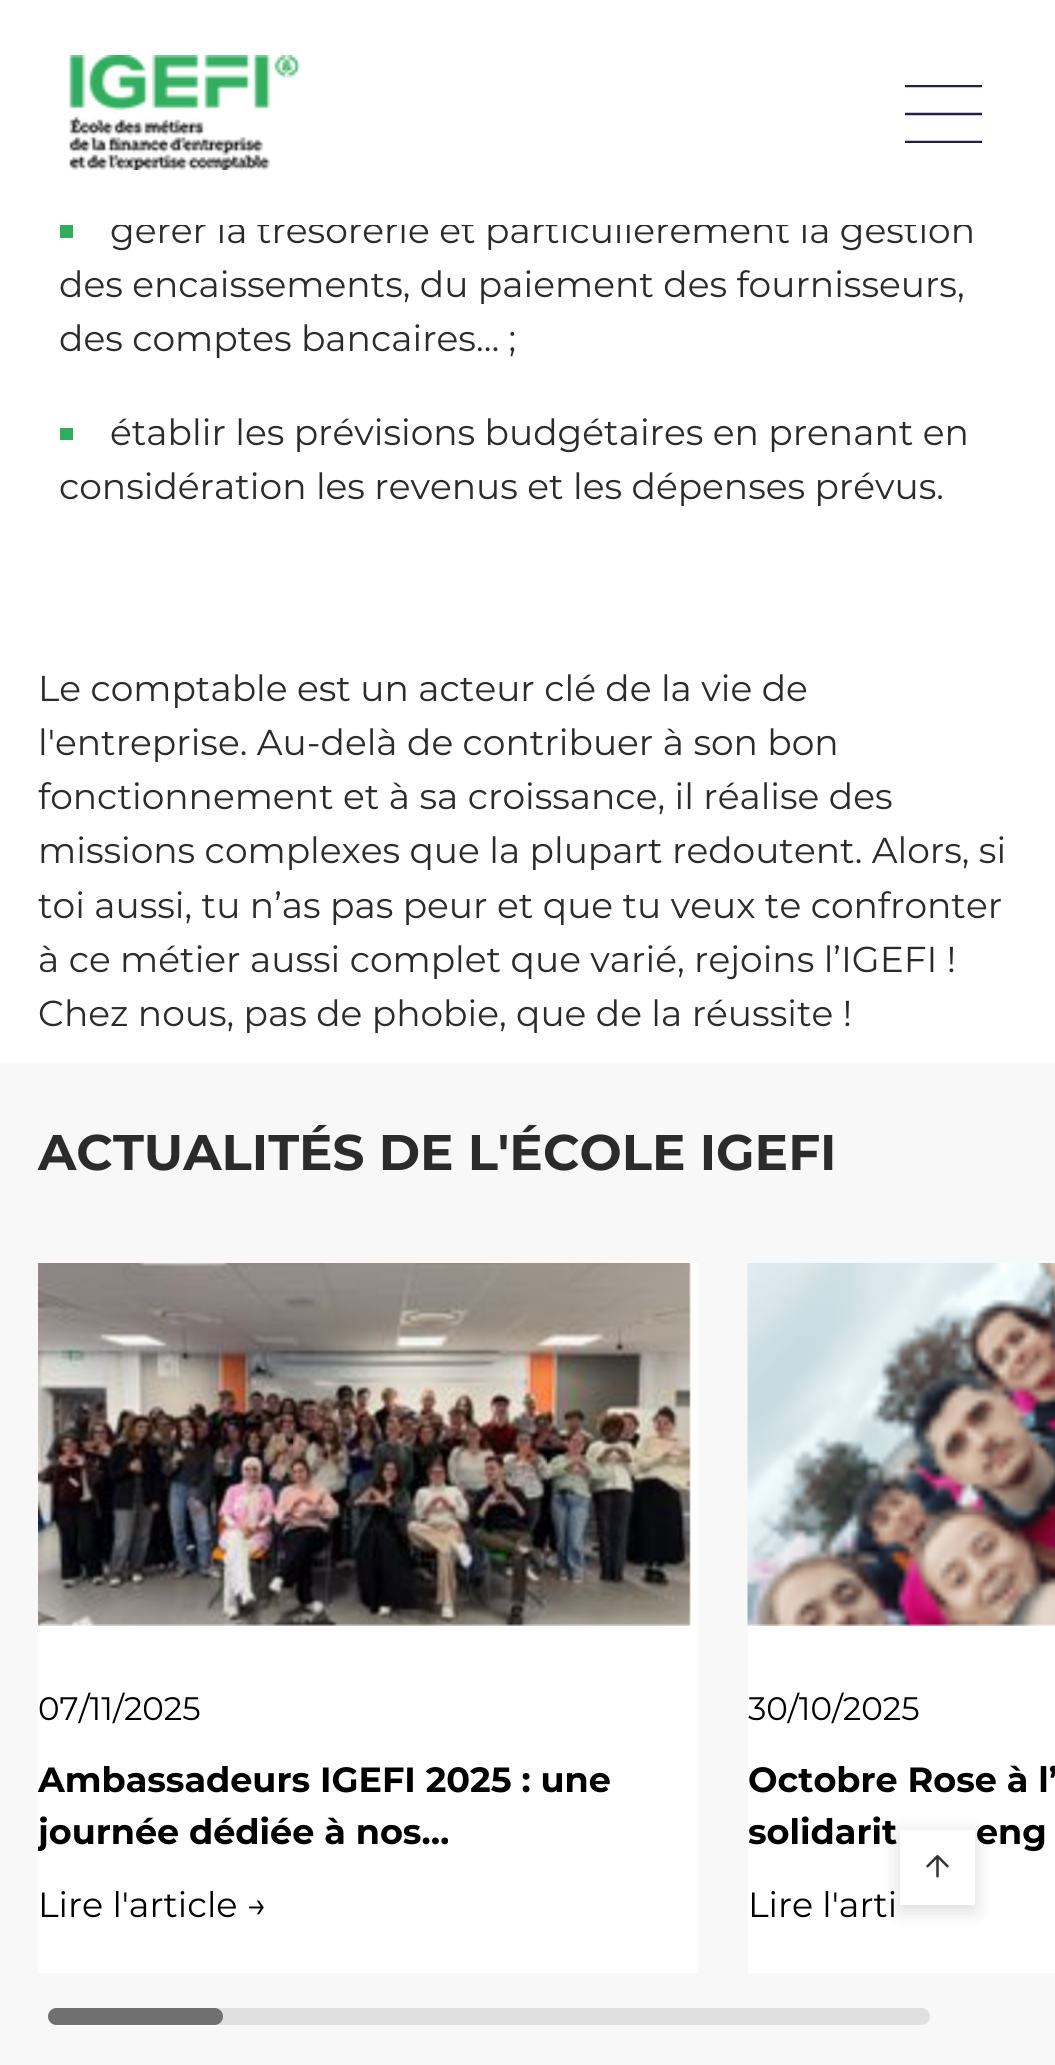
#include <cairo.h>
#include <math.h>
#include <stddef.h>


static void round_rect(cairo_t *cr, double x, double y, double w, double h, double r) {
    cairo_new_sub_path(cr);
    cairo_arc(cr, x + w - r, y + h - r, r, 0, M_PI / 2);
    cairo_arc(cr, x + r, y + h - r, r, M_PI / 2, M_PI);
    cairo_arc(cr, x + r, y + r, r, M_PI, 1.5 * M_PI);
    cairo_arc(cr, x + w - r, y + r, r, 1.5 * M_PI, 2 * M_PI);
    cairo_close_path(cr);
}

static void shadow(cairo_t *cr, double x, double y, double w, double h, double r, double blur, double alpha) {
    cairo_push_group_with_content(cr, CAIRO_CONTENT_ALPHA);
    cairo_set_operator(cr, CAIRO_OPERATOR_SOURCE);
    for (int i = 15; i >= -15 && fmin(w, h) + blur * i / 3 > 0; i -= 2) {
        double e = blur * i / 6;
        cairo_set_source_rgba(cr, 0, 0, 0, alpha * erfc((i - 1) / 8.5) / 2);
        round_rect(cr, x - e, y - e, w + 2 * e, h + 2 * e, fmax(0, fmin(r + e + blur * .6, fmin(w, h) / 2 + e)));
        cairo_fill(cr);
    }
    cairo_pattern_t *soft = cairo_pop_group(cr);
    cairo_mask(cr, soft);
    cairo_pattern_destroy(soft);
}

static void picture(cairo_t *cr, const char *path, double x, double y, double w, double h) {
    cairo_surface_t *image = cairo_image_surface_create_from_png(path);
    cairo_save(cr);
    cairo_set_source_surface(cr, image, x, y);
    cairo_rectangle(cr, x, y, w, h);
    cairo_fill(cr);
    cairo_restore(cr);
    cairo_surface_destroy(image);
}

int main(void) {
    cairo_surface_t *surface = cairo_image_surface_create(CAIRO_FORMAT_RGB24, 1055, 2065);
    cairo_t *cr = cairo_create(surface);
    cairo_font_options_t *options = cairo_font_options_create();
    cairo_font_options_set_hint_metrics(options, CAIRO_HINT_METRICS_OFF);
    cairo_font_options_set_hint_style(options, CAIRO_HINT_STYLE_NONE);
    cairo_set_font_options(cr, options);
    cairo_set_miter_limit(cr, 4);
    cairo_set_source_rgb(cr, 1, 1, 1);
    cairo_paint(cr);
    cairo_select_font_face(cr, "Montserrat", CAIRO_FONT_SLANT_NORMAL, CAIRO_FONT_WEIGHT_NORMAL);
    cairo_set_font_size(cr, 36);
    cairo_set_source_rgb(cr, 0.165, 0.169, 0.165);
    cairo_move_to(cr, 110, 243);
    cairo_show_text(cr, "gérer la trésorerie et particulièrement la gestion");
    cairo_set_source_rgb(cr, 1, 1, 1);
    cairo_rectangle(cr, 117, 216, 852, 9);
    cairo_fill(cr);
    picture(cr, "img1.png", 69, 55, 232, 115);
    cairo_save(cr);
    cairo_rectangle(cr, 905, 85, 78, 58);
    cairo_clip(cr);
    cairo_new_path(cr);
    cairo_move_to(cr, 905, 86);
    cairo_line_to(cr, 982, 86);
    cairo_set_source_rgb(cr, 0.149, 0.118, 0.282);
    cairo_set_line_width(cr, 2.5);
    cairo_stroke(cr);
    cairo_restore(cr);
    cairo_new_path(cr);
    cairo_move_to(cr, 905, 114);
    cairo_line_to(cr, 982, 114);
    cairo_set_source_rgb(cr, 0.149, 0.118, 0.282);
    cairo_set_line_width(cr, 2.5);
    cairo_stroke(cr);
    cairo_save(cr);
    cairo_rectangle(cr, 905, 85, 78, 58);
    cairo_clip(cr);
    cairo_new_path(cr);
    cairo_move_to(cr, 905, 142);
    cairo_line_to(cr, 982, 142);
    cairo_stroke(cr);
    cairo_restore(cr);
    cairo_set_source_rgb(cr, 0.196, 0.675, 0.369);
    cairo_rectangle(cr, 60, 225, 13, 13);
    cairo_fill(cr);
    cairo_set_source_rgb(cr, 0.165, 0.169, 0.165);
    cairo_move_to(cr, 59, 297);
    cairo_show_text(cr, "des encaissements, du paiement des fournisseurs,");
    cairo_move_to(cr, 59, 351);
    cairo_show_text(cr, "des comptes bancaires… ;");
    cairo_set_source_rgb(cr, 0.196, 0.675, 0.369);
    cairo_rectangle(cr, 60, 428, 13, 12);
    cairo_fill(cr);
    cairo_set_source_rgb(cr, 0.165, 0.169, 0.165);
    cairo_move_to(cr, 110, 445);
    cairo_show_text(cr, "établir les prévisions budgétaires en prenant en");
    cairo_move_to(cr, 59, 499);
    cairo_show_text(cr, "considération les revenus et les dépenses prévus.");
    cairo_move_to(cr, 38, 701);
    cairo_show_text(cr, "Le comptable est un acteur clé de la vie de");
    cairo_move_to(cr, 38, 755);
    cairo_show_text(cr, "l'entreprise. Au-delà de contribuer à son bon");
    cairo_move_to(cr, 38, 809);
    cairo_show_text(cr, "fonctionnement et à sa croissance, il réalise des");
    cairo_move_to(cr, 38, 863);
    cairo_show_text(cr, "missions complexes que la plupart redoutent. Alors, si");
    cairo_move_to(cr, 38, 918);
    cairo_show_text(cr, "toi aussi, tu n’as pas peur et que tu veux te confronter");
    cairo_move_to(cr, 38, 972);
    cairo_show_text(cr, "à ce métier aussi complet que varié, rejoins l’IGEFI !");
    cairo_move_to(cr, 38, 1026);
    cairo_show_text(cr, "Chez nous, pas de phobie, que de la réussite !");
    cairo_set_source_rgb(cr, 0.969, 0.969, 0.969);
    cairo_rectangle(cr, 0, 1063, 1055, 1002);
    cairo_fill(cr);
    cairo_select_font_face(cr, "Montserrat", CAIRO_FONT_SLANT_NORMAL, CAIRO_FONT_WEIGHT_BOLD);
    cairo_set_font_size(cr, 50);
    cairo_set_source_rgb(cr, 0.165, 0.169, 0.165);
    cairo_move_to(cr, 38, 1170);
    cairo_show_text(cr, "ACTUALITÉS DE L'ÉCOLE IGEFI");
    cairo_set_source_rgb(cr, 1, 1, 1);
    cairo_rectangle(cr, 38, 1263, 660, 710);
    cairo_fill(cr);
    picture(cr, "img2.png", 38, 1263, 653, 363);
    cairo_select_font_face(cr, "Montserrat", CAIRO_FONT_SLANT_NORMAL, CAIRO_FONT_WEIGHT_NORMAL);
    cairo_set_font_size(cr, 32.5);
    cairo_set_source_rgb(cr, 0, 0, 0);
    cairo_move_to(cr, 38, 1720);
    cairo_show_text(cr, "07/11/2025");
    cairo_select_font_face(cr, "Montserrat", CAIRO_FONT_SLANT_NORMAL, CAIRO_FONT_WEIGHT_BOLD);
    cairo_set_font_size(cr, 35);
    cairo_move_to(cr, 38, 1792);
    cairo_show_text(cr, "Ambassadeurs IGEFI 2025 : une");
    cairo_save(cr);
    cairo_rectangle(cr, 38, 1755, 660, 105);
    cairo_clip(cr);
    cairo_move_to(cr, 38, 1844);
    cairo_show_text(cr, "journée dédiée à nos…");
    cairo_restore(cr);
    cairo_select_font_face(cr, "Montserrat", CAIRO_FONT_SLANT_NORMAL, CAIRO_FONT_WEIGHT_NORMAL);
    cairo_move_to(cr, 38, 1917);
    cairo_show_text(cr, "Lire l'article →");
    cairo_set_source_rgb(cr, 1, 1, 1);
    cairo_rectangle(cr, 748, 1624, 307, 349);
    cairo_fill(cr);
    picture(cr, "img3.png", 747, 1263, 308, 363);
    cairo_set_font_size(cr, 32.5);
    cairo_set_source_rgb(cr, 0, 0, 0);
    cairo_move_to(cr, 748, 1720);
    cairo_show_text(cr, "30/10/2025");
    cairo_select_font_face(cr, "Montserrat", CAIRO_FONT_SLANT_NORMAL, CAIRO_FONT_WEIGHT_BOLD);
    cairo_set_font_size(cr, 35);
    cairo_move_to(cr, 748, 1792);
    cairo_show_text(cr, "Octobre Rose à l’");
    cairo_move_to(cr, 748, 1844);
    cairo_show_text(cr, "solidarit");
    cairo_move_to(cr, 976, 1844);
    cairo_show_text(cr, "eng");
    cairo_select_font_face(cr, "Montserrat", CAIRO_FONT_SLANT_NORMAL, CAIRO_FONT_WEIGHT_NORMAL);
    cairo_move_to(cr, 748, 1917);
    cairo_show_text(cr, "Lire l'arti");
    cairo_set_source_rgb(cr, 0.878, 0.878, 0.878);
    round_rect(cr, 48, 2008, 882, 17, 8.5);
    cairo_fill(cr);
    cairo_set_source_rgba(cr, 0, 0, 0, 0.5);
    round_rect(cr, 48, 2008, 175, 17, 8.5);
    cairo_fill(cr);
    cairo_set_source_rgb(cr, 0, 0, 0);
    shadow(cr, 900, 1835, 75, 75, 0, 10, 0.15);
    cairo_set_source_rgb(cr, 1, 1, 1);
    cairo_rectangle(cr, 900, 1830, 75, 75);
    cairo_fill(cr);
    picture(cr, "img4.png", 926, 1855, 23, 23);
    cairo_surface_write_to_png(surface, "page.png");
    cairo_font_options_destroy(options);
    cairo_destroy(cr);
    cairo_surface_destroy(surface);
    return 0;
}
